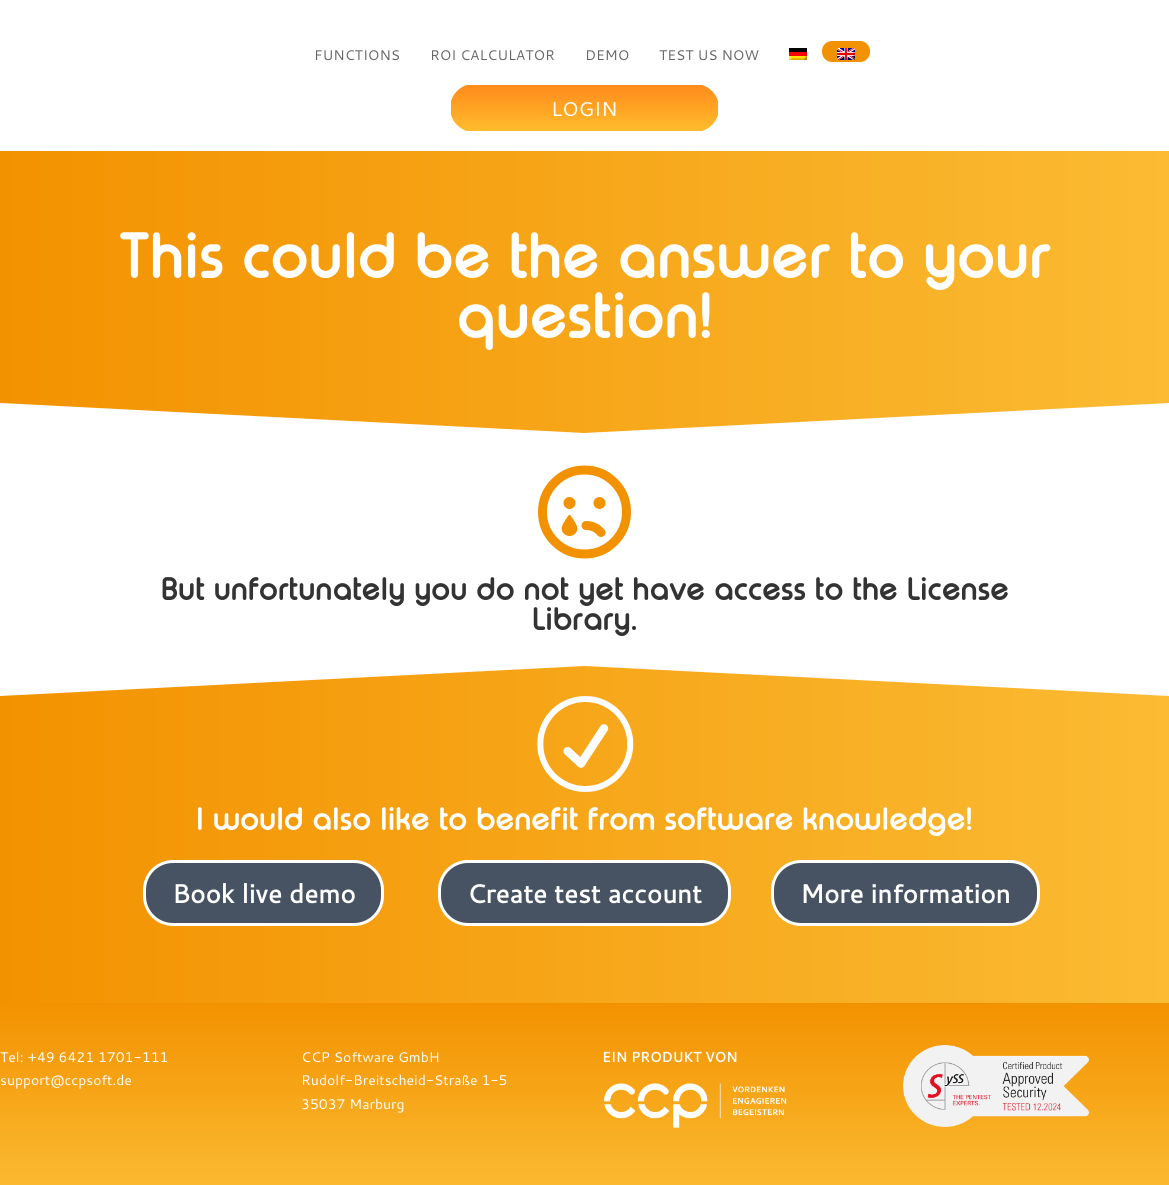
#include <cairo.h>
#include <math.h>
#include <stddef.h>


static void round_rect(cairo_t *cr, double x, double y, double w, double h, double r) {
    cairo_new_sub_path(cr);
    cairo_arc(cr, x + w - r, y + h - r, r, 0, M_PI / 2);
    cairo_arc(cr, x + r, y + h - r, r, M_PI / 2, M_PI);
    cairo_arc(cr, x + r, y + r, r, M_PI, 1.5 * M_PI);
    cairo_arc(cr, x + w - r, y + r, r, 1.5 * M_PI, 2 * M_PI);
    cairo_close_path(cr);
}

static void picture(cairo_t *cr, const char *path, double x, double y, double w, double h) {
    cairo_surface_t *image = cairo_image_surface_create_from_png(path);
    cairo_save(cr);
    cairo_set_source_surface(cr, image, x, y);
    cairo_rectangle(cr, x, y, w, h);
    cairo_fill(cr);
    cairo_restore(cr);
    cairo_surface_destroy(image);
}

int main(void) {
    cairo_surface_t *surface = cairo_image_surface_create(CAIRO_FORMAT_RGB24, 1169, 1185);
    cairo_t *cr = cairo_create(surface);
    cairo_font_options_t *options = cairo_font_options_create();
    cairo_font_options_set_hint_metrics(options, CAIRO_HINT_METRICS_OFF);
    cairo_font_options_set_hint_style(options, CAIRO_HINT_STYLE_NONE);
    cairo_set_font_options(cr, options);
    cairo_set_miter_limit(cr, 4);
    cairo_pattern_t *gradient;
    cairo_set_source_rgb(cr, 1, 1, 1);
    cairo_paint(cr);
    cairo_select_font_face(cr, "Cantarell", CAIRO_FONT_SLANT_NORMAL, CAIRO_FONT_WEIGHT_NORMAL);
    cairo_set_font_size(cr, 14);
    cairo_set_source_rgb(cr, 0.4, 0.4, 0.4);
    cairo_move_to(cr, 314, 60);
    cairo_show_text(cr, "FUNCTIONS");
    cairo_move_to(cr, 430, 60);
    cairo_show_text(cr, "ROI CALCULATOR");
    cairo_move_to(cr, 585, 60);
    cairo_show_text(cr, "DEMO");
    cairo_move_to(cr, 659, 60);
    cairo_show_text(cr, "TEST US NOW");
    picture(cr, "img1.png", 789, 48, 18, 12);
    cairo_set_source_rgb(cr, 0.953, 0.573, 0);
    round_rect(cr, 822, 41, 48, 21, 10);
    cairo_fill(cr);
    picture(cr, "img2.png", 837, 48, 18, 12);
    cairo_save(cr);
    round_rect(cr, 450, 84, 269, 48, 24);
    cairo_clip(cr);
    gradient = cairo_pattern_create_linear(585, 85, 585, 131);
    cairo_pattern_add_color_stop_rgba(gradient, 0, 1, 0.545, 0.114, 1);
    cairo_pattern_add_color_stop_rgba(gradient, 1, 1, 0.737, 0.169, 1);
    cairo_set_source(cr, gradient);
    cairo_pattern_destroy(gradient);
    cairo_rectangle(cr, 451, 85, 267, 46);
    cairo_fill(cr);
    cairo_restore(cr);
    cairo_set_font_size(cr, 20);
    cairo_set_source_rgb(cr, 1, 1, 1);
    cairo_move_to(cr, 551, 116);
    cairo_show_text(cr, "LOGIN");
    gradient = cairo_pattern_create_linear(0, 292, 1169, 292);
    cairo_pattern_add_color_stop_rgba(gradient, 0, 0.953, 0.573, 0, 1);
    cairo_pattern_add_color_stop_rgba(gradient, 1, 0.984, 0.733, 0.2, 1);
    cairo_set_source(cr, gradient);
    cairo_pattern_destroy(gradient);
    cairo_rectangle(cr, 0, 151, 1169, 282);
    cairo_fill(cr);
    cairo_select_font_face(cr, "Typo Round", CAIRO_FONT_SLANT_NORMAL, CAIRO_FONT_WEIGHT_BOLD);
    cairo_set_font_size(cr, 60);
    cairo_set_source_rgb(cr, 1, 1, 1);
    cairo_move_to(cr, 119, 278);
    cairo_show_text(cr, "This could be the answer to your");
    cairo_move_to(cr, 457, 338);
    cairo_show_text(cr, "question!");
    cairo_new_path(cr);
    cairo_move_to(cr, 584, 433);
    cairo_line_to(cr, 0, 403);
    cairo_line_to(cr, 0, 433);
    cairo_line_to(cr, 1169, 433);
    cairo_line_to(cr, 1169, 403);
    cairo_close_path(cr);
    cairo_fill(cr);
    picture(cr, "img3.png", 538, 465, 93, 94);
    cairo_set_font_size(cr, 30);
    cairo_set_source_rgb(cr, 0.2, 0.2, 0.2);
    cairo_move_to(cr, 161, 600);
    cairo_show_text(cr, "But unfortunately you do not yet have access to the License");
    cairo_move_to(cr, 532, 630);
    cairo_show_text(cr, "Library.");
    gradient = cairo_pattern_create_linear(0, 835, 1169, 835);
    cairo_pattern_add_color_stop_rgba(gradient, 0, 0.953, 0.573, 0, 1);
    cairo_pattern_add_color_stop_rgba(gradient, 1, 0.984, 0.733, 0.2, 1);
    cairo_set_source(cr, gradient);
    cairo_pattern_destroy(gradient);
    cairo_rectangle(cr, 0, 666, 1169, 337);
    cairo_fill(cr);
    cairo_set_source_rgb(cr, 1, 1, 1);
    cairo_new_path(cr);
    cairo_move_to(cr, 584, 666);
    cairo_line_to(cr, 0, 696);
    cairo_line_to(cr, 0, 666);
    cairo_line_to(cr, 1169, 666);
    cairo_line_to(cr, 1169, 696);
    cairo_close_path(cr);
    cairo_fill(cr);
    picture(cr, "img4.png", 537, 696, 97, 96);
    cairo_move_to(cr, 196, 830);
    cairo_show_text(cr, "I would also like to benefit from software knowledge!");
    cairo_set_source_rgb(cr, 0.278, 0.325, 0.384);
    round_rect(cr, 144.5, 861.5, 238, 63, 28.5);
    cairo_fill_preserve(cr);
    cairo_set_source_rgb(cr, 1, 1, 1);
    cairo_set_line_width(cr, 3);
    cairo_stroke(cr);
    cairo_select_font_face(cr, "Cantarell", CAIRO_FONT_SLANT_NORMAL, CAIRO_FONT_WEIGHT_BOLD);
    cairo_set_font_size(cr, 26);
    cairo_move_to(cr, 172, 903);
    cairo_show_text(cr, "Book live demo");
    cairo_set_source_rgb(cr, 0.278, 0.325, 0.384);
    round_rect(cr, 439.5, 861.5, 290, 63, 28.5);
    cairo_fill_preserve(cr);
    cairo_set_source_rgb(cr, 1, 1, 1);
    cairo_stroke(cr);
    cairo_move_to(cr, 467, 903);
    cairo_show_text(cr, "Create test account");
    cairo_set_source_rgb(cr, 0.278, 0.325, 0.384);
    round_rect(cr, 772.5, 861.5, 266, 63, 28.5);
    cairo_fill_preserve(cr);
    cairo_set_source_rgb(cr, 1, 1, 1);
    cairo_stroke(cr);
    cairo_move_to(cr, 800, 903);
    cairo_show_text(cr, "More information");
    gradient = cairo_pattern_create_linear(585, 1003, 585, 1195);
    cairo_pattern_add_color_stop_rgba(gradient, 0, 0.953, 0.573, 0, 1);
    cairo_pattern_add_color_stop_rgba(gradient, 1, 0.984, 0.733, 0.2, 1);
    cairo_set_source(cr, gradient);
    cairo_pattern_destroy(gradient);
    cairo_rectangle(cr, 0, 1003, 1169, 182);
    cairo_fill(cr);
    cairo_select_font_face(cr, "Cantarell", CAIRO_FONT_SLANT_NORMAL, CAIRO_FONT_WEIGHT_NORMAL);
    cairo_set_font_size(cr, 14);
    cairo_set_source_rgb(cr, 1, 1, 1);
    cairo_move_to(cr, 0, 1062);
    cairo_show_text(cr, "Tel: +49 6421 1701-111");
    cairo_move_to(cr, 0, 1085);
    cairo_show_text(cr, "support@ccpsoft.de");
    cairo_move_to(cr, 301, 1062);
    cairo_show_text(cr, "CCP Software GmbH");
    cairo_move_to(cr, 301, 1085);
    cairo_show_text(cr, "Rudolf-Breitscheid-Straße 1-5");
    cairo_move_to(cr, 301, 1109);
    cairo_show_text(cr, "35037 Marburg");
    cairo_select_font_face(cr, "Cantarell", CAIRO_FONT_SLANT_NORMAL, CAIRO_FONT_WEIGHT_BOLD);
    cairo_move_to(cr, 602, 1062);
    cairo_show_text(cr, "EIN PRODUKT VON");
    picture(cr, "img5.png", 603, 1083, 184, 45);
    picture(cr, "img6.png", 903, 1045, 186, 82);
    cairo_surface_write_to_png(surface, "page.png");
    cairo_font_options_destroy(options);
    cairo_destroy(cr);
    cairo_surface_destroy(surface);
    return 0;
}
